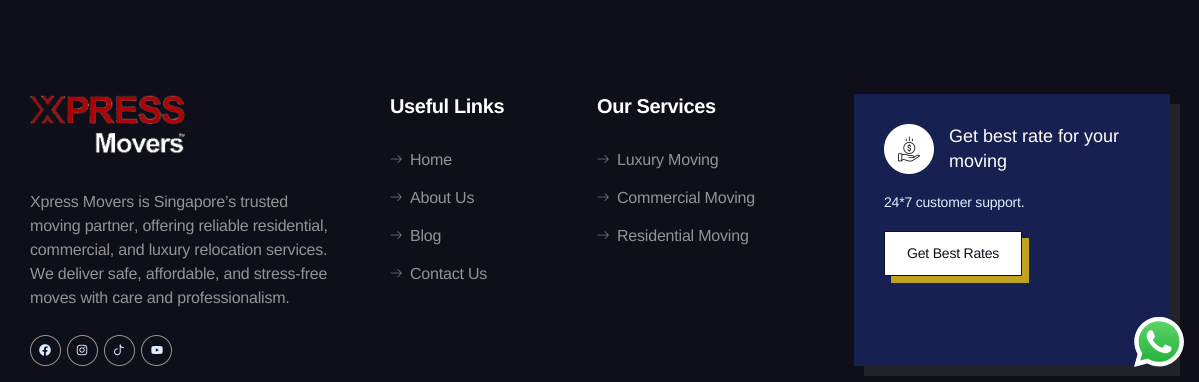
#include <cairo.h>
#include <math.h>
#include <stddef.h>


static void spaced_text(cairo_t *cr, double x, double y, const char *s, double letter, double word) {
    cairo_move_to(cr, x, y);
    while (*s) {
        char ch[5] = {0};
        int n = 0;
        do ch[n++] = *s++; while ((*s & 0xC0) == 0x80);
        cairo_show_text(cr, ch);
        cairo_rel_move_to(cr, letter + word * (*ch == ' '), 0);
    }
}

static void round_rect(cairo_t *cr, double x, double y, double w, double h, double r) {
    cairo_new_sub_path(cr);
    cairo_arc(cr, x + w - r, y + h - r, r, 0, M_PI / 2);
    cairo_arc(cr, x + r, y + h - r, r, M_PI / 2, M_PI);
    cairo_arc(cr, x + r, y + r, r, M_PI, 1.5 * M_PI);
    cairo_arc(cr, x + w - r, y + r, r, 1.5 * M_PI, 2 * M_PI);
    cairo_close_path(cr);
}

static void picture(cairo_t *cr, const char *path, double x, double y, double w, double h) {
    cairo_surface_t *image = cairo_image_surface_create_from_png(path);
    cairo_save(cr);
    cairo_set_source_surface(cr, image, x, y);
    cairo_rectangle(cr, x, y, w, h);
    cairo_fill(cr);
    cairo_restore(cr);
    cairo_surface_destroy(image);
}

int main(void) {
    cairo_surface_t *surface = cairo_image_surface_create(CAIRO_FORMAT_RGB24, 1199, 382);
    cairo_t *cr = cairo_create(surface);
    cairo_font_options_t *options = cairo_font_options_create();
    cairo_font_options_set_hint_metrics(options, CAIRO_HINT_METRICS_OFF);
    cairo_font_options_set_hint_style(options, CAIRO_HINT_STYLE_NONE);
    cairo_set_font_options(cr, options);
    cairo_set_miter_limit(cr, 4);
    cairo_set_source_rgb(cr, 0.055, 0.059, 0.094);
    cairo_paint(cr);
    picture(cr, "img1.png", 30, 95, 155, 59);
    cairo_select_font_face(cr, "Liberation Sans", CAIRO_FONT_SLANT_NORMAL, CAIRO_FONT_WEIGHT_NORMAL);
    cairo_set_font_size(cr, 16);
    cairo_set_source_rgb(cr, 0.576, 0.576, 0.576);
    spaced_text(cr, 30, 207, "Xpress Movers is Singapore’s trusted", -0.2, 0);
    spaced_text(cr, 30, 231, "moving partner, offering reliable residential,", -0.2, 0);
    spaced_text(cr, 30, 255, "commercial, and luxury relocation services.", -0.2, 0);
    spaced_text(cr, 30, 279, "We deliver safe, affordable, and stress-free", -0.2, 0);
    spaced_text(cr, 30, 303, "moves with care and professionalism.", -0.2, 0);
    cairo_new_path(cr);
    cairo_arc(cr, 45.5, 350.5, 15, 0, 2 * M_PI);
    cairo_set_line_width(cr, 1);
    cairo_stroke(cr);
    picture(cr, "img2.png", 39, 344, 12, 12);
    cairo_arc(cr, 82.5, 350.5, 15, 0, 2 * M_PI);
    cairo_stroke(cr);
    picture(cr, "img3.png", 76, 344, 12, 12);
    cairo_arc(cr, 119.5, 350.5, 15, 0, 2 * M_PI);
    cairo_stroke(cr);
    picture(cr, "img4.png", 114, 344, 10, 12);
    cairo_arc(cr, 156.5, 350.5, 15, 0, 2 * M_PI);
    cairo_stroke(cr);
    picture(cr, "img5.png", 151, 346, 12, 8);
    cairo_select_font_face(cr, "Liberation Sans", CAIRO_FONT_SLANT_NORMAL, CAIRO_FONT_WEIGHT_BOLD);
    cairo_set_font_size(cr, 20);
    cairo_set_source_rgb(cr, 1, 1, 1);
    spaced_text(cr, 390, 113, "Useful Links", -0.4, 0);
    picture(cr, "img6.png", 390, 155, 12, 8);
    cairo_select_font_face(cr, "Liberation Sans", CAIRO_FONT_SLANT_NORMAL, CAIRO_FONT_WEIGHT_NORMAL);
    cairo_set_font_size(cr, 16);
    cairo_set_source_rgb(cr, 0.576, 0.576, 0.576);
    spaced_text(cr, 410, 165, "Home", -0.2, 0);
    picture(cr, "img6.png", 390, 193, 12, 8);
    spaced_text(cr, 410, 203, "About Us", -0.2, 0);
    picture(cr, "img6.png", 390, 231, 12, 8);
    spaced_text(cr, 410, 241, "Blog", -0.2, 0);
    picture(cr, "img6.png", 390, 269, 12, 8);
    spaced_text(cr, 410, 279, "Contact Us", -0.2, 0);
    cairo_select_font_face(cr, "Liberation Sans", CAIRO_FONT_SLANT_NORMAL, CAIRO_FONT_WEIGHT_BOLD);
    cairo_set_font_size(cr, 20);
    cairo_set_source_rgb(cr, 1, 1, 1);
    spaced_text(cr, 597, 113, "Our Services", -0.4, 0);
    picture(cr, "img6.png", 597, 155, 12, 8);
    cairo_select_font_face(cr, "Liberation Sans", CAIRO_FONT_SLANT_NORMAL, CAIRO_FONT_WEIGHT_NORMAL);
    cairo_set_font_size(cr, 16);
    cairo_set_source_rgb(cr, 0.576, 0.576, 0.576);
    spaced_text(cr, 617, 165, "Luxury Moving", -0.2, 0);
    picture(cr, "img6.png", 597, 193, 12, 8);
    spaced_text(cr, 617, 203, "Commercial Moving", -0.2, 0);
    picture(cr, "img6.png", 597, 231, 12, 8);
    spaced_text(cr, 617, 241, "Residential Moving", -0.2, 0);
    cairo_set_source_rgb(cr, 0.129, 0.133, 0.165);
    cairo_new_path(cr);
    cairo_move_to(cr, 864, 366);
    cairo_line_to(cr, 864, 376);
    cairo_line_to(cr, 1180, 376);
    cairo_line_to(cr, 1180, 104);
    cairo_line_to(cr, 1170, 104);
    cairo_line_to(cr, 1170, 366);
    cairo_close_path(cr);
    cairo_fill(cr);
    cairo_set_source_rgb(cr, 0.086, 0.129, 0.318);
    cairo_rectangle(cr, 854, 94, 316, 272);
    cairo_fill(cr);
    cairo_set_source_rgb(cr, 1, 1, 1);
    cairo_arc(cr, 909, 149, 25, 0, 2 * M_PI);
    cairo_fill(cr);
    picture(cr, "img7.png", 898, 136, 22, 26);
    cairo_set_font_size(cr, 18);
    cairo_move_to(cr, 949, 142);
    cairo_show_text(cr, "Get best rate for your");
    cairo_move_to(cr, 949, 167);
    cairo_show_text(cr, "moving");
    cairo_set_font_size(cr, 14);
    cairo_set_source_rgb(cr, 0.871, 0.925, 1);
    spaced_text(cr, 884, 207, "24*7 customer support.", -0.2, 0);
    cairo_set_source_rgb(cr, 0.753, 0.639, 0.125);
    cairo_new_path(cr);
    cairo_move_to(cr, 891, 276);
    cairo_line_to(cr, 891, 282);
    cairo_curve_to(cr, 891, 283, 891, 283, 892, 283);
    cairo_line_to(cr, 1028, 283);
    cairo_curve_to(cr, 1029, 283, 1029, 283, 1029, 282);
    cairo_line_to(cr, 1029, 239);
    cairo_curve_to(cr, 1029, 238, 1029, 238, 1028, 238);
    cairo_line_to(cr, 1022, 238);
    cairo_line_to(cr, 1022, 275);
    cairo_curve_to(cr, 1022, 276, 1022, 276, 1021, 276);
    cairo_close_path(cr);
    cairo_fill(cr);
    cairo_set_source_rgb(cr, 1, 1, 1);
    round_rect(cr, 884.5, 231.5, 137, 44, 0.5);
    cairo_fill_preserve(cr);
    cairo_set_source_rgb(cr, 0.055, 0.059, 0.094);
    cairo_stroke(cr);
    spaced_text(cr, 907, 258, "Get Best Rates", -0.2, 0);
    picture(cr, "img8.png", 1134, 317, 50, 50);
    cairo_surface_write_to_png(surface, "page.png");
    cairo_font_options_destroy(options);
    cairo_destroy(cr);
    cairo_surface_destroy(surface);
    return 0;
}
